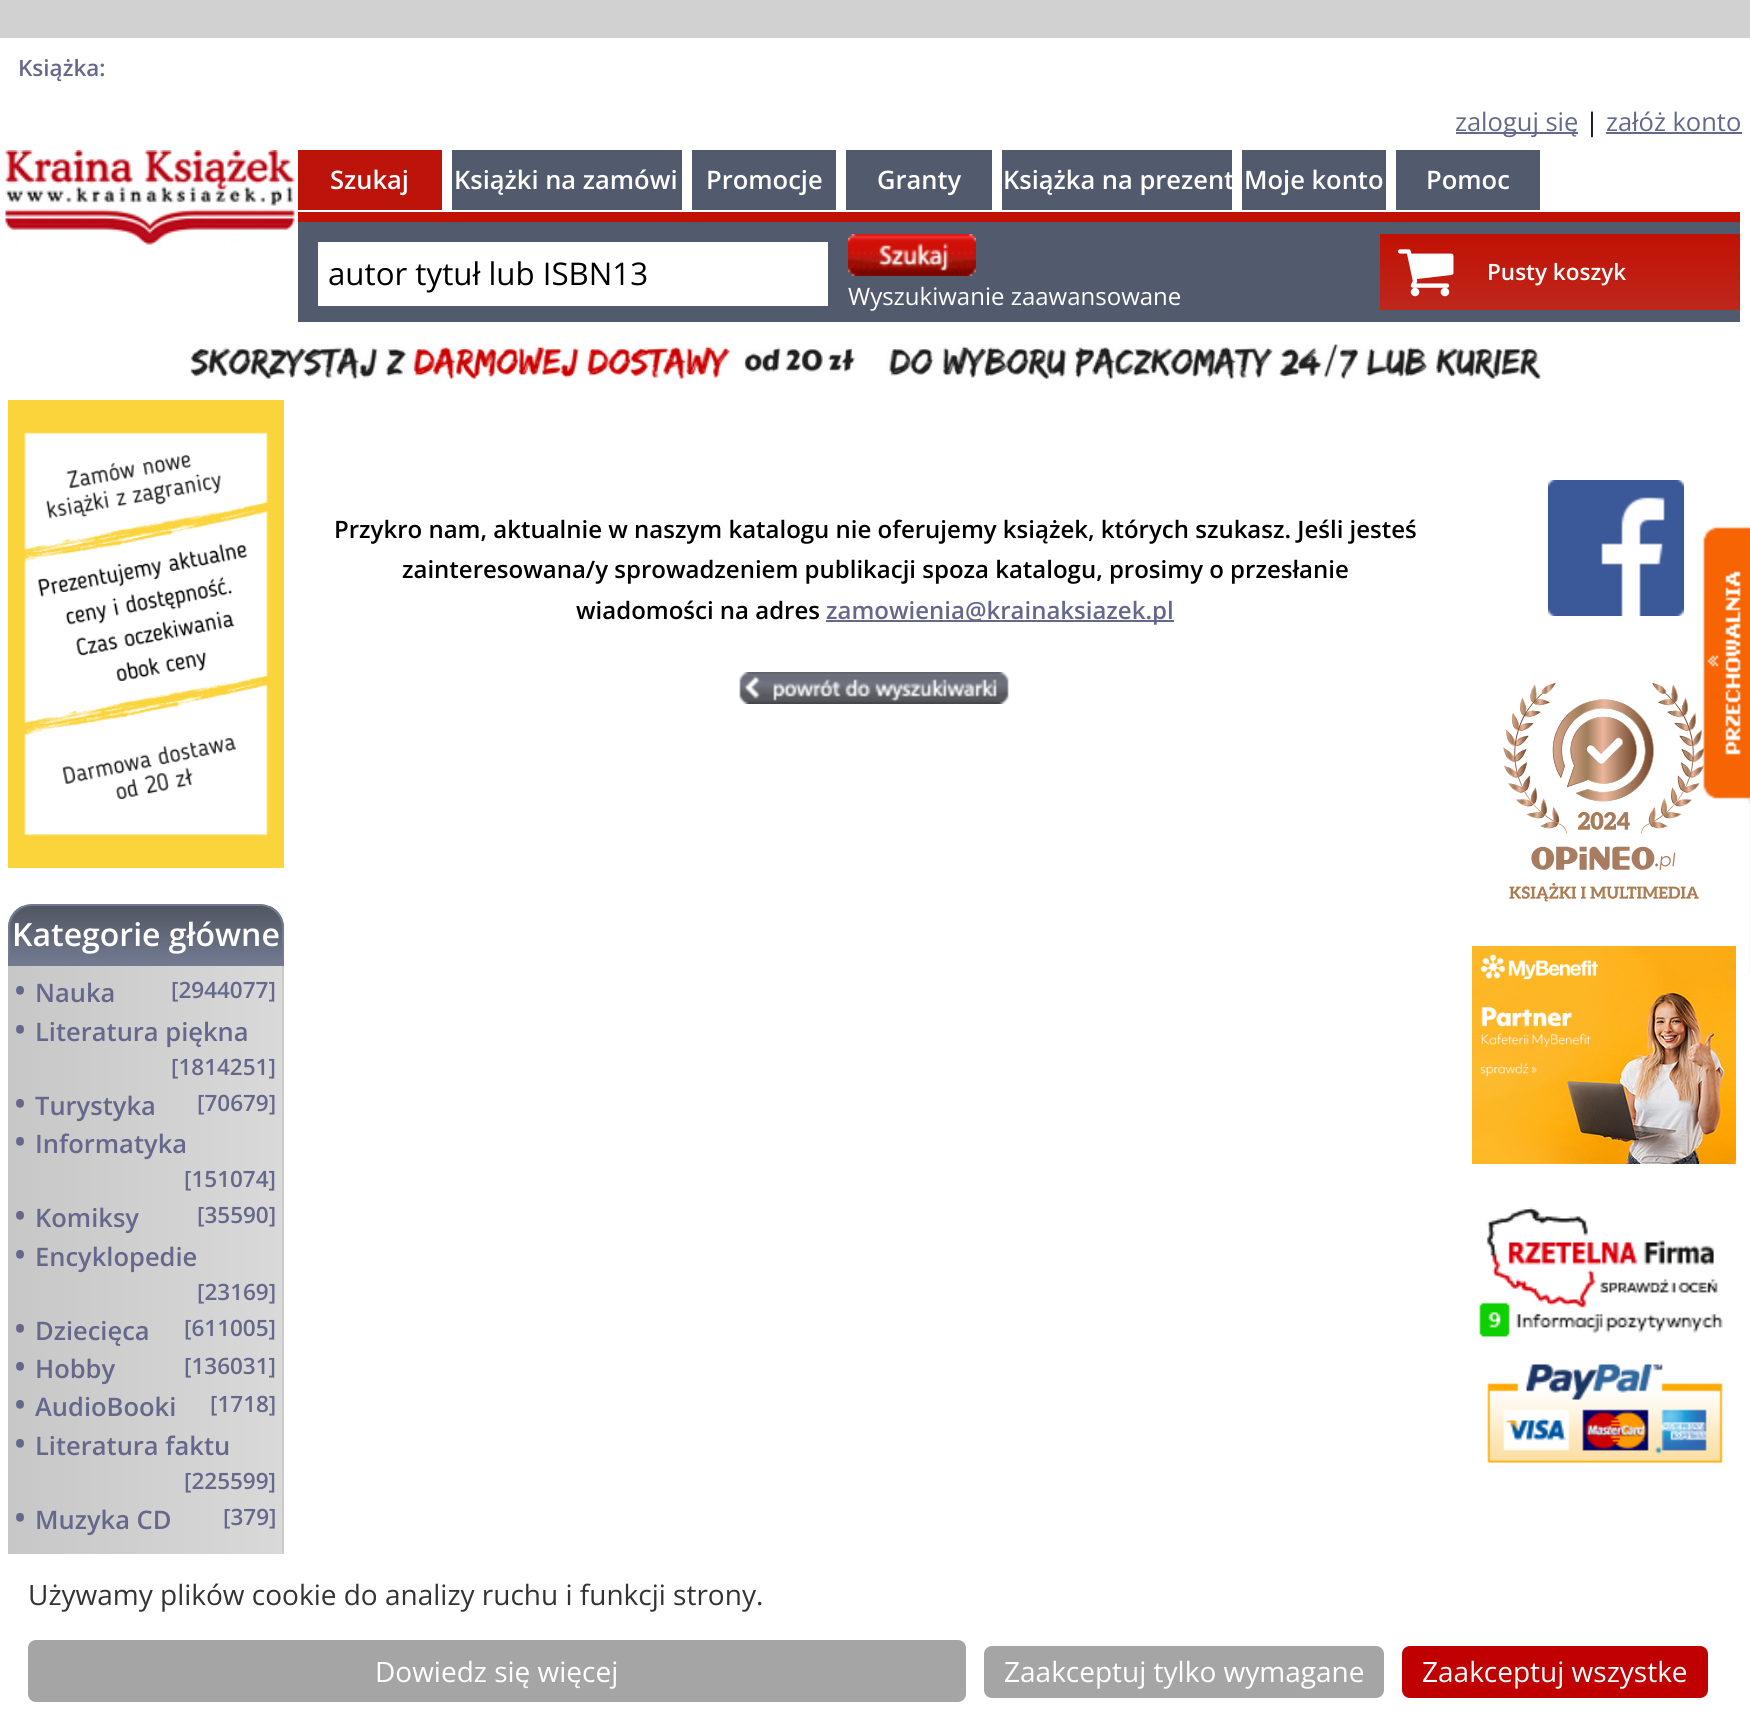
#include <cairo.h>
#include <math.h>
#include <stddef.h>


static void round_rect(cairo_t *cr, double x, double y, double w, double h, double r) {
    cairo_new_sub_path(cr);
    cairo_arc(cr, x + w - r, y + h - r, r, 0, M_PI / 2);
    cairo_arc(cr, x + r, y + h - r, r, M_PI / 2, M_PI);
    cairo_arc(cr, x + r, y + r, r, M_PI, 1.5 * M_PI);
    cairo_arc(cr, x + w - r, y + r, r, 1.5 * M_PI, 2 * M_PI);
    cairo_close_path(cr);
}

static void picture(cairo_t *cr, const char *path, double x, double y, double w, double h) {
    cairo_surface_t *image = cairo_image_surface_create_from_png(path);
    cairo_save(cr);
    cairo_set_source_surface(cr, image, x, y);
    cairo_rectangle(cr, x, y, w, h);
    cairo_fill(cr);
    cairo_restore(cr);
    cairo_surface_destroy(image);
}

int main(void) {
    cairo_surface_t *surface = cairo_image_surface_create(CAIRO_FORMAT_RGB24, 1750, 1729);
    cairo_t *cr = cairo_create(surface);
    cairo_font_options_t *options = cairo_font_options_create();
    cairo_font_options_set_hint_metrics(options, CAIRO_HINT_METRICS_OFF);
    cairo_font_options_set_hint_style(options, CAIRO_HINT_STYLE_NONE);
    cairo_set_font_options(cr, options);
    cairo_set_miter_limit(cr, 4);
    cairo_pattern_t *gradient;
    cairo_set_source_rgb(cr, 0.82, 0.82, 0.82);
    cairo_paint(cr);
    cairo_set_source_rgb(cr, 1, 1, 1);
    cairo_rectangle(cr, 0, 38, 1750, 1691);
    cairo_fill(cr);
    cairo_select_font_face(cr, "Open Sans SemiBold", CAIRO_FONT_SLANT_NORMAL, CAIRO_FONT_WEIGHT_NORMAL);
    cairo_set_font_size(cr, 22.5);
    cairo_set_source_rgb(cr, 0.396, 0.408, 0.545);
    cairo_move_to(cr, 18, 76);
    cairo_show_text(cr, "Książka:");
    cairo_rectangle(cr, 1456, 132, 122, 2);
    cairo_fill(cr);
    cairo_select_font_face(cr, "Open Sans", CAIRO_FONT_SLANT_NORMAL, CAIRO_FONT_WEIGHT_NORMAL);
    cairo_set_font_size(cr, 25.5);
    cairo_move_to(cr, 1455, 131);
    cairo_show_text(cr, "zaloguj się");
    cairo_set_source_rgb(cr, 0, 0, 0);
    cairo_move_to(cr, 1585, 131);
    cairo_show_text(cr, "|");
    cairo_set_source_rgb(cr, 0.396, 0.408, 0.545);
    cairo_move_to(cr, 1606, 131);
    cairo_show_text(cr, "załóż konto");
    cairo_rectangle(cr, 1606, 132, 136, 2);
    cairo_fill(cr);
    picture(cr, "img1.png", 5, 150, 290, 95);
    cairo_set_source_rgb(cr, 0.757, 0.067, 0.016);
    cairo_rectangle(cr, 298, 212, 1442, 10);
    cairo_fill(cr);
    cairo_set_source_rgb(cr, 0.737, 0.078, 0.043);
    cairo_rectangle(cr, 298, 150, 144, 60);
    cairo_fill(cr);
    cairo_select_font_face(cr, "Open Sans SemiBold", CAIRO_FONT_SLANT_NORMAL, CAIRO_FONT_WEIGHT_NORMAL);
    cairo_set_source_rgb(cr, 1, 1, 1);
    cairo_move_to(cr, 330, 189);
    cairo_show_text(cr, "Szukaj");
    cairo_set_source_rgb(cr, 0.322, 0.353, 0.427);
    cairo_rectangle(cr, 452, 150, 230, 60);
    cairo_fill(cr);
    cairo_set_source_rgb(cr, 1, 1, 1);
    cairo_move_to(cr, 454, 189);
    cairo_show_text(cr, "Książki na zamówi");
    cairo_set_source_rgb(cr, 0.322, 0.353, 0.427);
    cairo_rectangle(cr, 692, 150, 144, 60);
    cairo_fill(cr);
    cairo_set_source_rgb(cr, 1, 1, 1);
    cairo_move_to(cr, 706, 189);
    cairo_show_text(cr, "Promocje");
    cairo_set_source_rgb(cr, 0.322, 0.353, 0.427);
    cairo_rectangle(cr, 846, 150, 146, 60);
    cairo_fill(cr);
    cairo_set_source_rgb(cr, 1, 1, 1);
    cairo_move_to(cr, 877, 189);
    cairo_show_text(cr, "Granty");
    cairo_set_source_rgb(cr, 0.322, 0.353, 0.427);
    cairo_rectangle(cr, 1002, 150, 230, 60);
    cairo_fill(cr);
    cairo_set_source_rgb(cr, 1, 1, 1);
    cairo_move_to(cr, 1003, 189);
    cairo_show_text(cr, "Książka na prezent");
    cairo_set_source_rgb(cr, 0.322, 0.353, 0.427);
    cairo_rectangle(cr, 1242, 150, 144, 60);
    cairo_fill(cr);
    cairo_set_source_rgb(cr, 1, 1, 1);
    cairo_move_to(cr, 1244, 189);
    cairo_show_text(cr, "Moje konto");
    cairo_set_source_rgb(cr, 0.322, 0.353, 0.427);
    cairo_rectangle(cr, 1396, 150, 144, 60);
    cairo_fill(cr);
    cairo_set_source_rgb(cr, 1, 1, 1);
    cairo_move_to(cr, 1426, 189);
    cairo_show_text(cr, "Pomoc");
    cairo_set_source_rgb(cr, 0.322, 0.353, 0.427);
    cairo_rectangle(cr, 298, 222, 1442, 100);
    cairo_fill(cr);
    cairo_set_source_rgb(cr, 1, 1, 1);
    cairo_rectangle(cr, 318, 242, 510, 64);
    cairo_fill(cr);
    cairo_select_font_face(cr, "Open Sans", CAIRO_FONT_SLANT_NORMAL, CAIRO_FONT_WEIGHT_NORMAL);
    cairo_set_font_size(cr, 31.25);
    cairo_set_source_rgb(cr, 0, 0, 0);
    cairo_move_to(cr, 328, 285);
    cairo_show_text(cr, "autor tytuł lub ISBN13");
    picture(cr, "img2.png", 848, 234, 128, 42);
    cairo_set_font_size(cr, 24);
    cairo_set_source_rgb(cr, 1, 1, 1);
    cairo_move_to(cr, 848, 305);
    cairo_show_text(cr, "Wyszukiwanie zaawansowane");
    gradient = cairo_pattern_create_linear(1560, 234, 1560, 310);
    cairo_pattern_add_color_stop_rgba(gradient, 0, 0.757, 0.067, 0.016, 1);
    cairo_pattern_add_color_stop_rgba(gradient, 1, 0.749, 0.153, 0.11, 1);
    cairo_set_source(cr, gradient);
    cairo_pattern_destroy(gradient);
    cairo_rectangle(cr, 1380, 234, 360, 76);
    cairo_fill(cr);
    picture(cr, "img3.png", 1398, 249, 56, 48);
    cairo_select_font_face(cr, "Open Sans SemiBold", CAIRO_FONT_SLANT_NORMAL, CAIRO_FONT_WEIGHT_NORMAL);
    cairo_set_font_size(cr, 22.5);
    cairo_set_source_rgb(cr, 1, 1, 1);
    cairo_move_to(cr, 1487, 280);
    cairo_show_text(cr, "Pusty koszyk");
    picture(cr, "img4.png", 190, 343, 1351, 37);
    cairo_set_font_size(cr, 24);
    cairo_set_source_rgb(cr, 0, 0, 0);
    cairo_move_to(cr, 334, 538);
    cairo_show_text(cr, "Przykro nam, aktualnie w naszym katalogu nie oferujemy książek, których szukasz. Jeśli jesteś");
    cairo_move_to(cr, 402, 578);
    cairo_show_text(cr, "zainteresowana/y sprowadzeniem publikacji spoza katalogu, prosimy o przesłanie");
    cairo_move_to(cr, 576, 619);
    cairo_show_text(cr, "wiadomości na adres");
    cairo_set_source_rgb(cr, 0.396, 0.408, 0.545);
    cairo_rectangle(cr, 826, 620, 348, 2);
    cairo_fill(cr);
    cairo_move_to(cr, 826, 619);
    cairo_show_text(cr, "zamowienia@krainaksiazek.pl");
    picture(cr, "img5.png", 739, 672, 270, 32);
    picture(cr, "img6.png", 1548, 480, 136, 136);
    picture(cr, "img7.png", 1503, 683, 202, 219);
    picture(cr, "img8.png", 1472, 946, 264, 218);
    picture(cr, "img9.png", 1479, 1207, 244, 130);
    picture(cr, "img10.png", 1487, 1364, 236, 99);
    picture(cr, "img11.png", 8, 400, 276, 468);
    cairo_save(cr);
    cairo_new_path(cr);
    cairo_move_to(cr, 32, 904);
    cairo_line_to(cr, 260, 904);
    cairo_curve_to(cr, 273.5, 904, 284, 914.5, 284, 928);
    cairo_line_to(cr, 284, 966);
    cairo_line_to(cr, 8, 966);
    cairo_line_to(cr, 8, 928);
    cairo_curve_to(cr, 8, 914.5, 18.5, 904, 32, 904);
    cairo_close_path(cr);
    cairo_clip(cr);
    gradient = cairo_pattern_create_linear(146, 906, 146, 964);
    cairo_pattern_add_color_stop_rgba(gradient, 0, 0.314, 0.341, 0.38, 1);
    cairo_pattern_add_color_stop_rgba(gradient, 1, 0.447, 0.478, 0.569, 1);
    cairo_set_source(cr, gradient);
    cairo_pattern_destroy(gradient);
    cairo_rectangle(cr, 8, 906, 276, 58);
    cairo_fill(cr);
    cairo_restore(cr);
    cairo_new_path(cr);
    cairo_move_to(cr, 32, 905);
    cairo_line_to(cr, 260, 905);
    cairo_curve_to(cr, 272.5, 905, 283, 915.5, 283, 928);
    cairo_line_to(cr, 283, 965);
    cairo_line_to(cr, 9, 965);
    cairo_line_to(cr, 9, 928);
    cairo_curve_to(cr, 9, 915.5, 19.5, 905, 32, 905);
    cairo_close_path(cr);
    cairo_set_source_rgb(cr, 0.447, 0.478, 0.569);
    cairo_stroke(cr);
    cairo_set_font_size(cr, 32);
    cairo_set_source_rgb(cr, 1, 1, 1);
    cairo_move_to(cr, 12, 946);
    cairo_show_text(cr, "Kategorie główne");
    gradient = cairo_pattern_create_linear(8, 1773, 282, 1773);
    cairo_pattern_add_color_stop_rgba(gradient, 0, 0.78, 0.78, 0.78, 1);
    cairo_pattern_add_color_stop_rgba(gradient, 1, 0.851, 0.851, 0.851, 1);
    cairo_set_source(cr, gradient);
    cairo_pattern_destroy(gradient);
    cairo_rectangle(cr, 8, 966, 274, 588);
    cairo_fill(cr);
    cairo_set_source_rgb(cr, 0.8, 0.8, 0.8);
    cairo_rectangle(cr, 282, 966, 2, 588);
    cairo_fill(cr);
    cairo_set_source_rgb(cr, 0.396, 0.408, 0.545);
    cairo_move_to(cr, 14, 1002);
    cairo_show_text(cr, "•");
    cairo_set_font_size(cr, 25.5);
    cairo_move_to(cr, 35, 1002);
    cairo_show_text(cr, "Nauka");
    cairo_set_font_size(cr, 22.5);
    cairo_move_to(cr, 171, 998);
    cairo_show_text(cr, "[2944077]");
    cairo_set_font_size(cr, 32);
    cairo_move_to(cr, 14, 1041);
    cairo_show_text(cr, "•");
    cairo_set_font_size(cr, 25.5);
    cairo_move_to(cr, 35, 1041);
    cairo_show_text(cr, "Literatura piękna");
    cairo_set_font_size(cr, 22.5);
    cairo_move_to(cr, 171, 1075);
    cairo_show_text(cr, "[1814251]");
    cairo_set_font_size(cr, 32);
    cairo_move_to(cr, 14, 1115);
    cairo_show_text(cr, "•");
    cairo_set_font_size(cr, 25.5);
    cairo_move_to(cr, 35, 1115);
    cairo_show_text(cr, "Turystyka");
    cairo_set_font_size(cr, 22.5);
    cairo_move_to(cr, 197, 1111);
    cairo_show_text(cr, "[70679]");
    cairo_set_font_size(cr, 32);
    cairo_move_to(cr, 14, 1153);
    cairo_show_text(cr, "•");
    cairo_set_font_size(cr, 25.5);
    cairo_move_to(cr, 35, 1153);
    cairo_show_text(cr, "Informatyka");
    cairo_set_font_size(cr, 22.5);
    cairo_move_to(cr, 184, 1187);
    cairo_show_text(cr, "[151074]");
    cairo_set_font_size(cr, 32);
    cairo_move_to(cr, 14, 1227);
    cairo_show_text(cr, "•");
    cairo_set_font_size(cr, 25.5);
    cairo_move_to(cr, 35, 1227);
    cairo_show_text(cr, "Komiksy");
    cairo_set_font_size(cr, 22.5);
    cairo_move_to(cr, 197, 1223);
    cairo_show_text(cr, "[35590]");
    cairo_set_font_size(cr, 32);
    cairo_move_to(cr, 14, 1266);
    cairo_show_text(cr, "•");
    cairo_set_font_size(cr, 25.5);
    cairo_move_to(cr, 35, 1266);
    cairo_show_text(cr, "Encyklopedie");
    cairo_set_font_size(cr, 22.5);
    cairo_move_to(cr, 197, 1300);
    cairo_show_text(cr, "[23169]");
    cairo_set_font_size(cr, 32);
    cairo_move_to(cr, 14, 1340);
    cairo_show_text(cr, "•");
    cairo_set_font_size(cr, 25.5);
    cairo_move_to(cr, 35, 1340);
    cairo_show_text(cr, "Dziecięca");
    cairo_set_font_size(cr, 22.5);
    cairo_move_to(cr, 184, 1336);
    cairo_show_text(cr, "[611005]");
    cairo_set_font_size(cr, 32);
    cairo_move_to(cr, 14, 1378);
    cairo_show_text(cr, "•");
    cairo_set_font_size(cr, 25.5);
    cairo_move_to(cr, 35, 1378);
    cairo_show_text(cr, "Hobby");
    cairo_set_font_size(cr, 22.5);
    cairo_move_to(cr, 184, 1374);
    cairo_show_text(cr, "[136031]");
    cairo_set_font_size(cr, 32);
    cairo_move_to(cr, 14, 1416);
    cairo_show_text(cr, "•");
    cairo_set_font_size(cr, 25.5);
    cairo_move_to(cr, 35, 1416);
    cairo_show_text(cr, "AudioBooki");
    cairo_set_font_size(cr, 22.5);
    cairo_move_to(cr, 210, 1412);
    cairo_show_text(cr, "[1718]");
    cairo_set_font_size(cr, 32);
    cairo_move_to(cr, 14, 1455);
    cairo_show_text(cr, "•");
    cairo_set_font_size(cr, 25.5);
    cairo_move_to(cr, 35, 1455);
    cairo_show_text(cr, "Literatura faktu");
    cairo_set_font_size(cr, 22.5);
    cairo_move_to(cr, 184, 1489);
    cairo_show_text(cr, "[225599]");
    cairo_set_font_size(cr, 32);
    cairo_move_to(cr, 14, 1529);
    cairo_show_text(cr, "•");
    cairo_set_font_size(cr, 25.5);
    cairo_move_to(cr, 35, 1529);
    cairo_show_text(cr, "Muzyka CD");
    cairo_set_font_size(cr, 22.5);
    cairo_move_to(cr, 223, 1525);
    cairo_show_text(cr, "[379]");
    picture(cr, "img12.png", 1749, 797, 1, 178);
    picture(cr, "img13.png", 1702, 524, 48, 280);
    cairo_select_font_face(cr, "Open Sans", CAIRO_FONT_SLANT_NORMAL, CAIRO_FONT_WEIGHT_NORMAL);
    cairo_set_font_size(cr, 28);
    cairo_set_source_rgb(cr, 0.2, 0.2, 0.2);
    cairo_move_to(cr, 28, 1605);
    cairo_show_text(cr, "Używamy plików cookie do analizy ruchu i funkcji strony.");
    cairo_set_source_rgb(cr, 0.647, 0.647, 0.647);
    round_rect(cr, 28, 1640, 938, 62, 8);
    cairo_fill(cr);
    cairo_set_source_rgb(cr, 1, 1, 1);
    cairo_move_to(cr, 375, 1682);
    cairo_show_text(cr, "Dowiedz się więcej");
    cairo_set_source_rgb(cr, 0.647, 0.647, 0.647);
    round_rect(cr, 984, 1646, 400, 52, 8);
    cairo_fill(cr);
    cairo_set_source_rgb(cr, 1, 1, 1);
    cairo_move_to(cr, 1004, 1682);
    cairo_show_text(cr, "Zaakceptuj tylko wymagane");
    cairo_set_source_rgb(cr, 0.753, 0, 0);
    round_rect(cr, 1402, 1646, 306, 52, 8);
    cairo_fill(cr);
    cairo_set_source_rgb(cr, 1, 1, 1);
    cairo_move_to(cr, 1422, 1682);
    cairo_show_text(cr, "Zaakceptuj wszystke");
    cairo_surface_write_to_png(surface, "page.png");
    cairo_font_options_destroy(options);
    cairo_destroy(cr);
    cairo_surface_destroy(surface);
    return 0;
}
